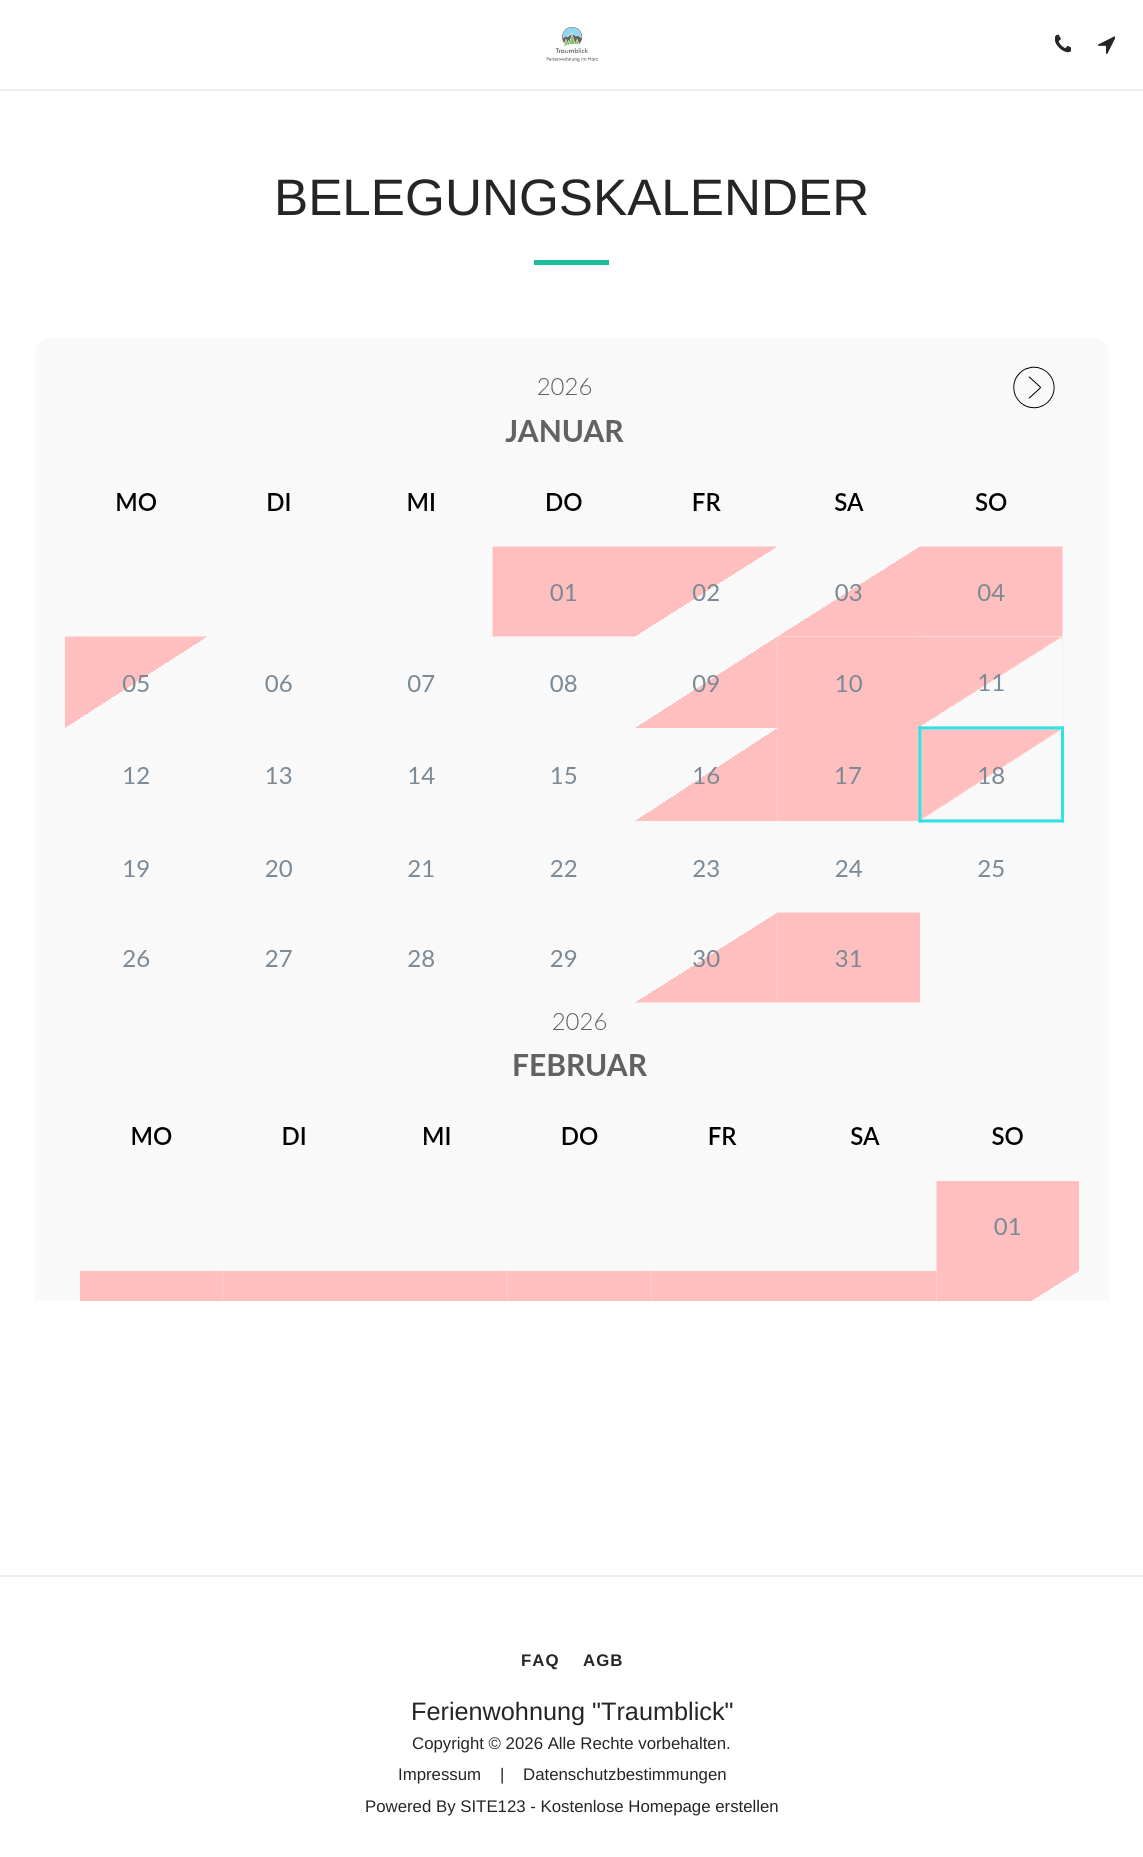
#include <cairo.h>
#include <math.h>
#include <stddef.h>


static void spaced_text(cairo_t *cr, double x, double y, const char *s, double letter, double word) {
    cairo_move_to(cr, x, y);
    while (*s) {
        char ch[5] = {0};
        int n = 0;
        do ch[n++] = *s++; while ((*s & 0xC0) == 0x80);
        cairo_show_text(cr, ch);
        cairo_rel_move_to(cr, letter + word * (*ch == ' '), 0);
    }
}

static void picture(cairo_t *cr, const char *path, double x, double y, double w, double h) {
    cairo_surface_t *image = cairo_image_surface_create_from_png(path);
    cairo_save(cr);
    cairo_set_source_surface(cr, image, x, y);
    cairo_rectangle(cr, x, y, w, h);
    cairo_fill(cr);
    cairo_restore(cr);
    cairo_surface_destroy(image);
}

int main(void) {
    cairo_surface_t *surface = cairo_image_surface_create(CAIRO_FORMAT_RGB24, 1143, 1857);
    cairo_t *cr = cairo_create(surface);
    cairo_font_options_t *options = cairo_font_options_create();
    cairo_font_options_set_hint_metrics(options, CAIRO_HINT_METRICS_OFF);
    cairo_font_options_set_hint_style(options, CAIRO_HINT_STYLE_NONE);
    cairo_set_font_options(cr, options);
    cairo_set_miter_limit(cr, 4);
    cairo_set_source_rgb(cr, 1, 1, 1);
    cairo_paint(cr);
    cairo_set_source_rgb(cr, 0.922, 0.922, 0.922);
    cairo_rectangle(cr, 0, 89, 1143, 2);
    cairo_fill(cr);
    picture(cr, "img1.png", 546, 27, 52, 35);
    picture(cr, "img2.png", 1055, 34, 16, 19);
    picture(cr, "img3.png", 1098, 36, 17, 18);
    cairo_select_font_face(cr, "Liberation Sans", CAIRO_FONT_SLANT_NORMAL, CAIRO_FONT_WEIGHT_NORMAL);
    cairo_set_font_size(cr, 51.25);
    cairo_set_source_rgb(cr, 0.145, 0.145, 0.145);
    cairo_move_to(cr, 274, 215);
    cairo_show_text(cr, "BELEGUNGSKALENDER");
    cairo_set_source_rgb(cr, 0.102, 0.737, 0.612);
    cairo_rectangle(cr, 534, 260, 75, 5);
    cairo_fill(cr);
    picture(cr, "img4.png", 35, 338, 1074, 963);
    cairo_set_source_rgb(cr, 0.922, 0.922, 0.922);
    cairo_rectangle(cr, 0, 1575, 1143, 2);
    cairo_fill(cr);
    cairo_select_font_face(cr, "Liberation Sans", CAIRO_FONT_SLANT_NORMAL, CAIRO_FONT_WEIGHT_BOLD);
    cairo_set_font_size(cr, 16.8);
    cairo_set_source_rgb(cr, 0.145, 0.145, 0.145);
    spaced_text(cr, 521, 1666, "FAQ", 1, 0);
    spaced_text(cr, 583, 1666, "AGB", 1, 0);
    cairo_select_font_face(cr, "Liberation Sans", CAIRO_FONT_SLANT_NORMAL, CAIRO_FONT_WEIGHT_NORMAL);
    cairo_set_font_size(cr, 25.25);
    cairo_move_to(cr, 411, 1720);
    cairo_show_text(cr, "Ferienwohnung \"Traumblick\"");
    cairo_set_font_size(cr, 16.8);
    cairo_move_to(cr, 412, 1749);
    cairo_show_text(cr, "Copyright © 2026 Alle Rechte vorbehalten.");
    cairo_move_to(cr, 398, 1780);
    cairo_show_text(cr, "Impressum");
    cairo_move_to(cr, 500, 1780);
    cairo_show_text(cr, "|");
    cairo_move_to(cr, 523, 1780);
    cairo_show_text(cr, "Datenschutzbestimmungen");
    cairo_move_to(cr, 365, 1812);
    cairo_show_text(cr, "Powered By SITE123 - Kostenlose Homepage erstellen");
    cairo_surface_write_to_png(surface, "page.png");
    cairo_font_options_destroy(options);
    cairo_destroy(cr);
    cairo_surface_destroy(surface);
    return 0;
}
